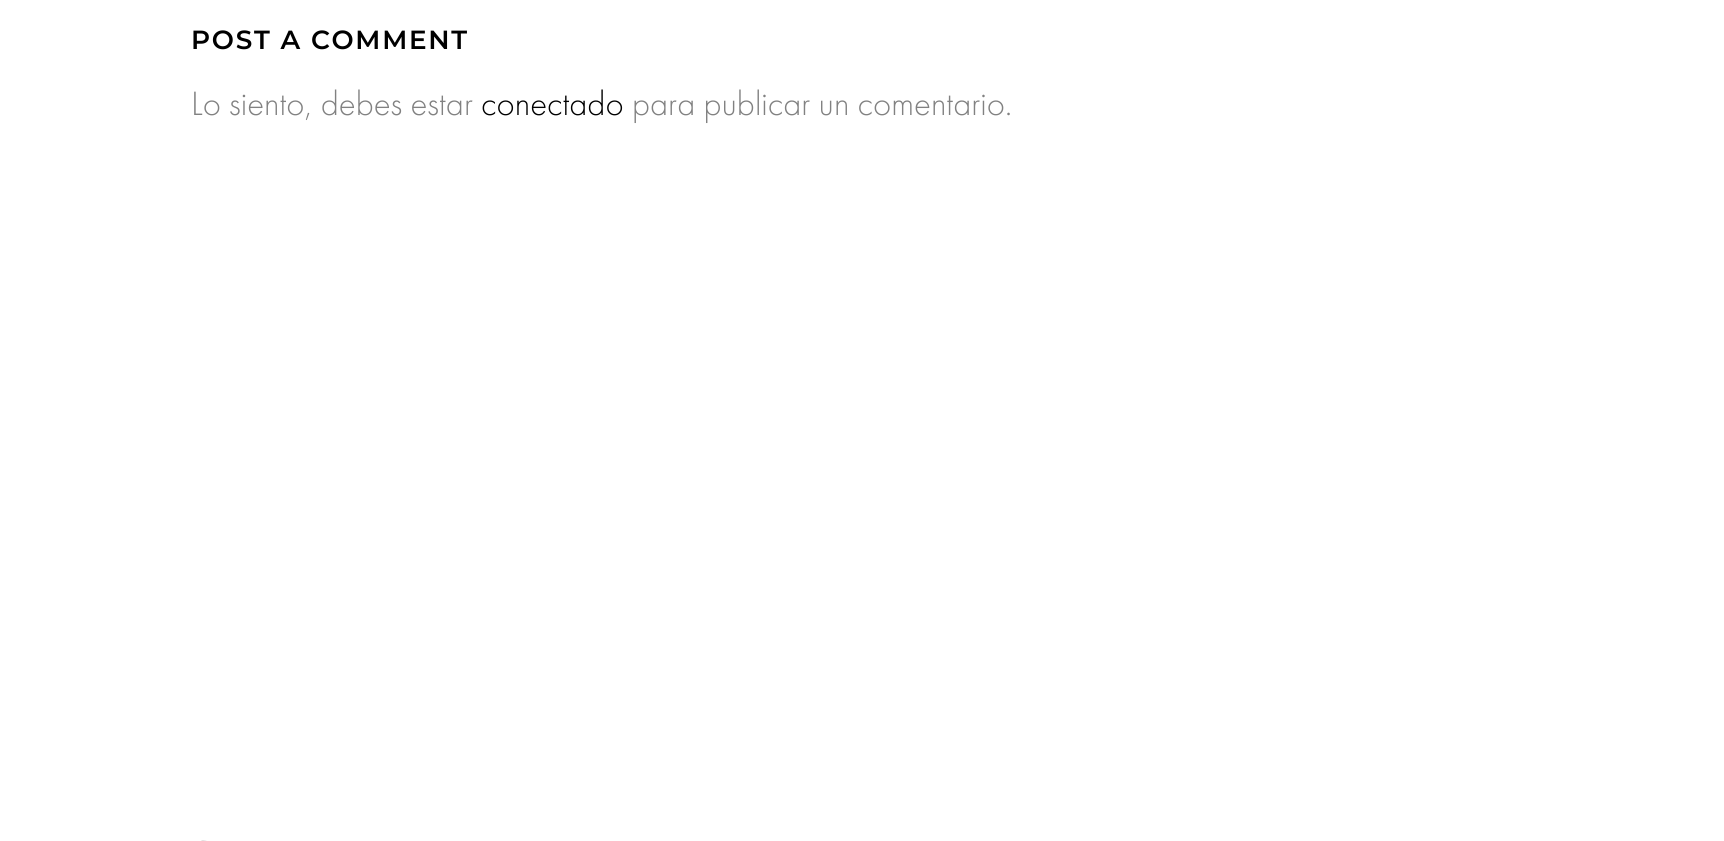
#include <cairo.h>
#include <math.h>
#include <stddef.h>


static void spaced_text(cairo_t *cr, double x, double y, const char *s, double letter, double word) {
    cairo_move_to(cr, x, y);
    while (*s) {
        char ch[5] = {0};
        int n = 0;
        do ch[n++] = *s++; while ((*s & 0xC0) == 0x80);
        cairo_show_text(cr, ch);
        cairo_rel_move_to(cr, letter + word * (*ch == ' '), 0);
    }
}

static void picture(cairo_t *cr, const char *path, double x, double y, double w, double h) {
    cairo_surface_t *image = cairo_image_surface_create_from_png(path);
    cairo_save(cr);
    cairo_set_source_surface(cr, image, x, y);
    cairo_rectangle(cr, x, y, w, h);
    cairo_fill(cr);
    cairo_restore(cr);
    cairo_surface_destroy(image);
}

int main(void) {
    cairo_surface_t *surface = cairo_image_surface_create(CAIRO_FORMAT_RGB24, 1724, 841);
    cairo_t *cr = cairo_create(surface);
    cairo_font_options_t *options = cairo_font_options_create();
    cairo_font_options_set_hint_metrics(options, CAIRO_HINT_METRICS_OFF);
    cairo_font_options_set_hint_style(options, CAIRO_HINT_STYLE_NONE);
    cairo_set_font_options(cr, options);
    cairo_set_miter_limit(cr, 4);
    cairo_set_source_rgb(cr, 1, 1, 1);
    cairo_paint(cr);
    cairo_select_font_face(cr, "Montserrat SemiBold", CAIRO_FONT_SLANT_NORMAL, CAIRO_FONT_WEIGHT_NORMAL);
    cairo_set_font_size(cr, 26.25);
    cairo_set_source_rgb(cr, 0, 0, 0);
    spaced_text(cr, 191, 49, "POST A COMMENT", 1.75, 0);
    cairo_select_font_face(cr, "Futura PT Light", CAIRO_FONT_SLANT_NORMAL, CAIRO_FONT_WEIGHT_NORMAL);
    cairo_set_font_size(cr, 35);
    cairo_set_source_rgb(cr, 0.506, 0.506, 0.506);
    cairo_move_to(cr, 191, 115);
    cairo_show_text(cr, "Lo siento, debes estar");
    cairo_set_source_rgb(cr, 0, 0, 0);
    cairo_move_to(cr, 481, 115);
    cairo_show_text(cr, "conectado");
    cairo_set_source_rgb(cr, 0.506, 0.506, 0.506);
    cairo_move_to(cr, 632, 115);
    cairo_show_text(cr, "para publicar un comentario.");
    picture(cr, "img1.png", 201, 840, 6, 1);
    cairo_surface_write_to_png(surface, "page.png");
    cairo_font_options_destroy(options);
    cairo_destroy(cr);
    cairo_surface_destroy(surface);
    return 0;
}
